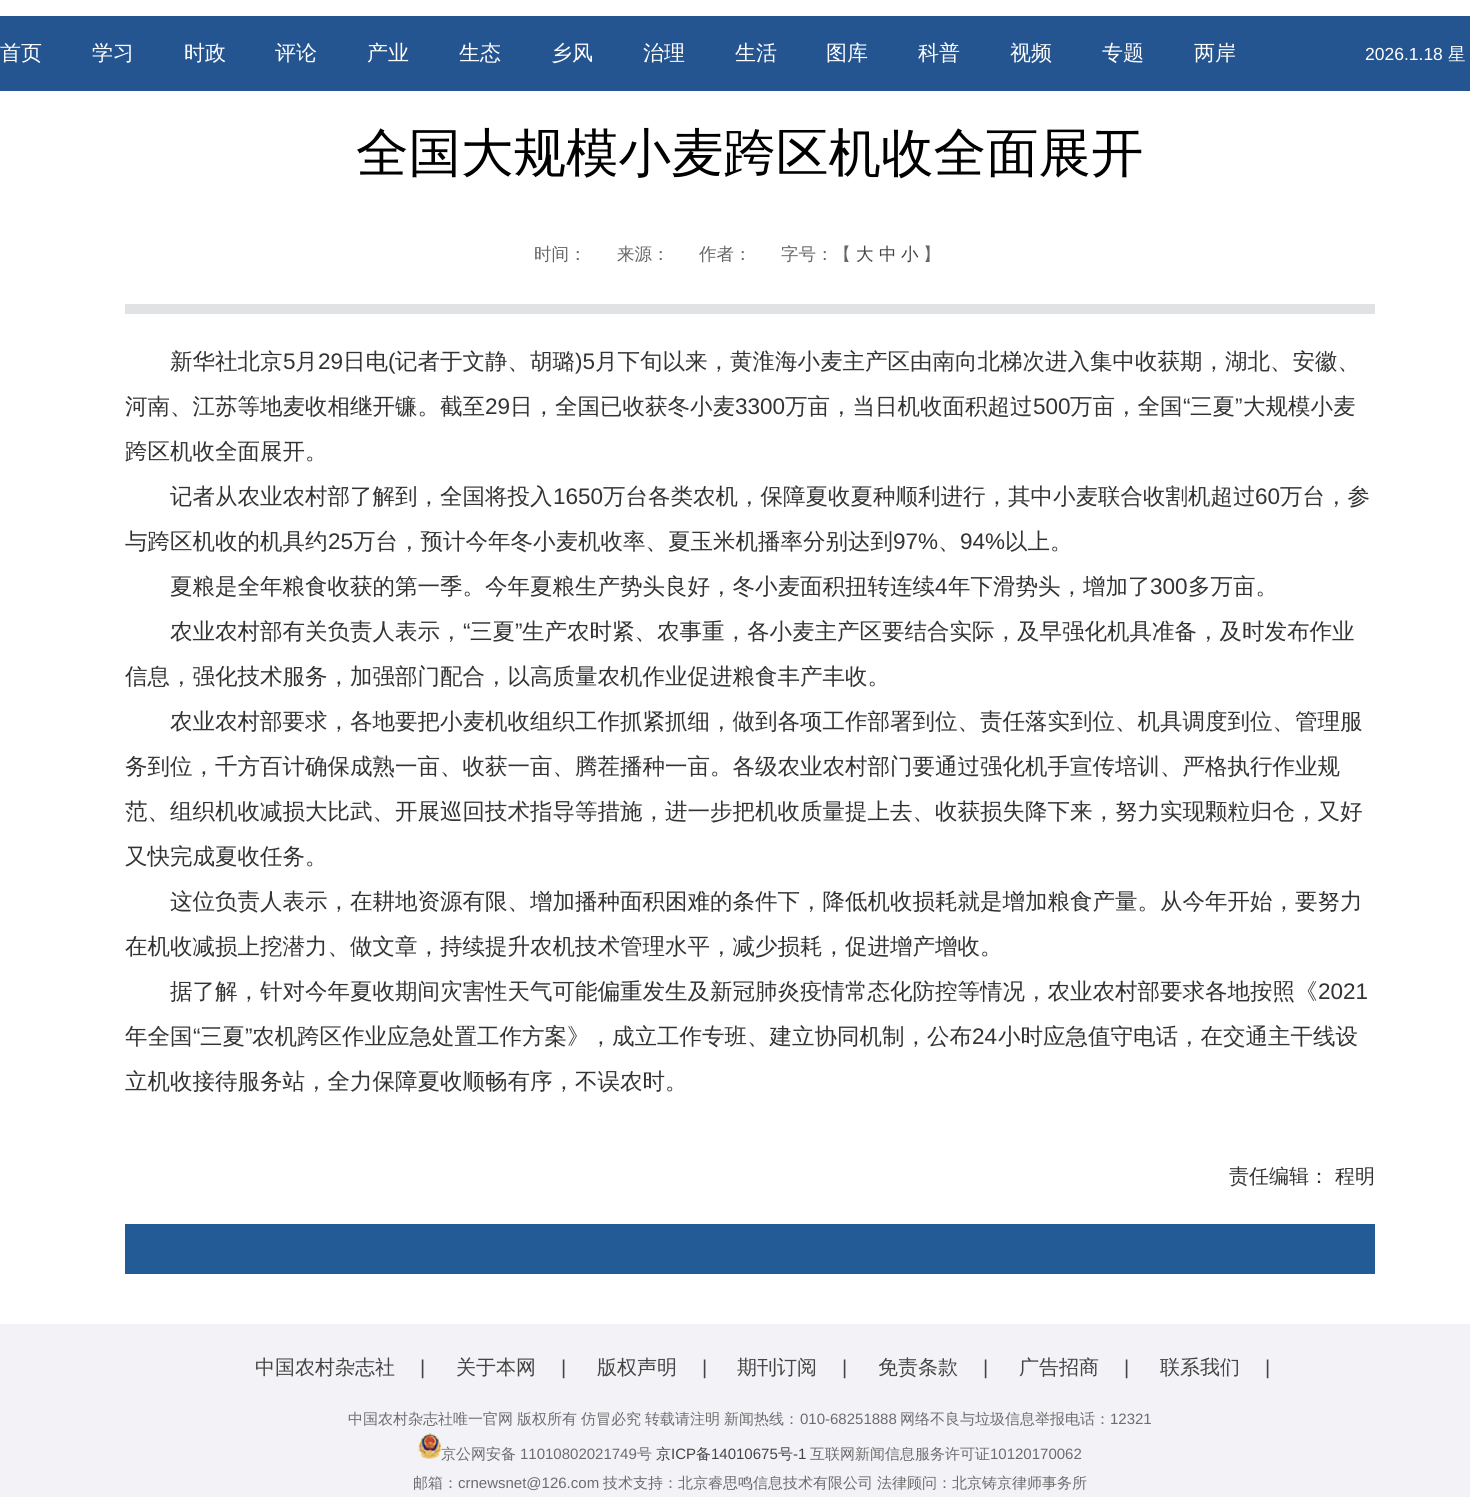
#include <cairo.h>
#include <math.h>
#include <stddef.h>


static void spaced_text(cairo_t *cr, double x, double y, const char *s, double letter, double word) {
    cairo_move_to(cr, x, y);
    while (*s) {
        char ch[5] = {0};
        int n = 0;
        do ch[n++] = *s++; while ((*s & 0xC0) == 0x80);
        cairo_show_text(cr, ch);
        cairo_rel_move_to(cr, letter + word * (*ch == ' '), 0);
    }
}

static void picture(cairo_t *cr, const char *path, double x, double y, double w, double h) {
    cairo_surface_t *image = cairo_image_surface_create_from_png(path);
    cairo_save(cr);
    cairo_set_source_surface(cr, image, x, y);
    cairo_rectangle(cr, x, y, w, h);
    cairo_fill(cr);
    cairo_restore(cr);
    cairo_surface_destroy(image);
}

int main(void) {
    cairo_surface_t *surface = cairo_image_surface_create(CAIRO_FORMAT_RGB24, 1470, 1497);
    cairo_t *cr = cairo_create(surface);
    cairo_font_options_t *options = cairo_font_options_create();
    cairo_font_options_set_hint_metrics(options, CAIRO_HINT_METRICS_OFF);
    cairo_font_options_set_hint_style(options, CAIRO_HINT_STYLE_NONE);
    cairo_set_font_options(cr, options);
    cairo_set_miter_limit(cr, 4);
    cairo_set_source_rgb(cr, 1, 1, 1);
    cairo_paint(cr);
    cairo_set_source_rgb(cr, 0.145, 0.333, 0.565);
    cairo_rectangle(cr, 0, 16, 1470, 75);
    cairo_fill(cr);
    cairo_select_font_face(cr, "WenQuanYi Zen Hei Medium", CAIRO_FONT_SLANT_NORMAL, CAIRO_FONT_WEIGHT_NORMAL);
    cairo_set_font_size(cr, 21);
    cairo_set_source_rgb(cr, 1, 1, 1);
    cairo_move_to(cr, 0, 60);
    cairo_show_text(cr, "首页");
    cairo_move_to(cr, 92, 60);
    cairo_show_text(cr, "学习");
    cairo_move_to(cr, 184, 60);
    cairo_show_text(cr, "时政");
    cairo_move_to(cr, 275, 60);
    cairo_show_text(cr, "评论");
    cairo_move_to(cr, 367, 60);
    cairo_show_text(cr, "产业");
    cairo_move_to(cr, 459, 60);
    cairo_show_text(cr, "生态");
    cairo_move_to(cr, 551, 60);
    cairo_show_text(cr, "乡风");
    cairo_move_to(cr, 643, 60);
    cairo_show_text(cr, "治理");
    cairo_move_to(cr, 735, 60);
    cairo_show_text(cr, "生活");
    cairo_move_to(cr, 826, 60);
    cairo_show_text(cr, "图库");
    cairo_move_to(cr, 918, 60);
    cairo_show_text(cr, "科普");
    cairo_move_to(cr, 1010, 60);
    cairo_show_text(cr, "视频");
    cairo_move_to(cr, 1102, 60);
    cairo_show_text(cr, "专题");
    cairo_move_to(cr, 1194, 60);
    cairo_show_text(cr, "两岸");
    cairo_select_font_face(cr, "Liberation Sans", CAIRO_FONT_SLANT_NORMAL, CAIRO_FONT_WEIGHT_NORMAL);
    cairo_set_font_size(cr, 17.5);
    cairo_move_to(cr, 1365, 60);
    cairo_show_text(cr, "2026.1.18");
    cairo_select_font_face(cr, "WenQuanYi Zen Hei Medium", CAIRO_FONT_SLANT_NORMAL, CAIRO_FONT_WEIGHT_NORMAL);
    cairo_move_to(cr, 1448, 60);
    cairo_show_text(cr, "星");
    cairo_set_font_size(cr, 52.5);
    cairo_set_source_rgb(cr, 0, 0, 0);
    cairo_move_to(cr, 356, 171);
    cairo_show_text(cr, "全国大规模小麦跨区机收全面展开");
    cairo_set_source_rgb(cr, 0.882, 0.886, 0.894);
    cairo_rectangle(cr, 125, 304, 1250, 10);
    cairo_fill(cr);
    cairo_set_font_size(cr, 17.5);
    cairo_set_source_rgb(cr, 0.4, 0.4, 0.4);
    cairo_move_to(cr, 534, 260);
    cairo_show_text(cr, "时间：");
    cairo_move_to(cr, 617, 260);
    cairo_show_text(cr, "来源：");
    cairo_move_to(cr, 699, 260);
    cairo_show_text(cr, "作者：");
    cairo_move_to(cr, 781, 260);
    cairo_show_text(cr, "字号：【");
    cairo_set_source_rgb(cr, 0.267, 0.267, 0.267);
    cairo_move_to(cr, 856, 260);
    cairo_show_text(cr, "大");
    cairo_move_to(cr, 879, 260);
    cairo_show_text(cr, "中");
    cairo_move_to(cr, 901, 260);
    cairo_show_text(cr, "小");
    cairo_set_source_rgb(cr, 0.4, 0.4, 0.4);
    cairo_move_to(cr, 923, 260);
    cairo_show_text(cr, "】");
    cairo_set_font_size(cr, 22.5);
    cairo_set_source_rgb(cr, 0.2, 0.2, 0.2);
    cairo_move_to(cr, 170, 369);
    cairo_show_text(cr, "新华社北京");
    cairo_select_font_face(cr, "Liberation Sans", CAIRO_FONT_SLANT_NORMAL, CAIRO_FONT_WEIGHT_NORMAL);
    cairo_move_to(cr, 283, 369);
    cairo_show_text(cr, "5");
    cairo_select_font_face(cr, "WenQuanYi Zen Hei Medium", CAIRO_FONT_SLANT_NORMAL, CAIRO_FONT_WEIGHT_NORMAL);
    cairo_move_to(cr, 295, 369);
    cairo_show_text(cr, "月");
    cairo_select_font_face(cr, "Liberation Sans", CAIRO_FONT_SLANT_NORMAL, CAIRO_FONT_WEIGHT_NORMAL);
    cairo_move_to(cr, 318, 369);
    cairo_show_text(cr, "29");
    cairo_select_font_face(cr, "WenQuanYi Zen Hei Medium", CAIRO_FONT_SLANT_NORMAL, CAIRO_FONT_WEIGHT_NORMAL);
    cairo_move_to(cr, 343, 369);
    cairo_show_text(cr, "日电");
    cairo_select_font_face(cr, "Liberation Sans", CAIRO_FONT_SLANT_NORMAL, CAIRO_FONT_WEIGHT_NORMAL);
    cairo_move_to(cr, 388, 369);
    cairo_show_text(cr, "(");
    cairo_select_font_face(cr, "WenQuanYi Zen Hei Medium", CAIRO_FONT_SLANT_NORMAL, CAIRO_FONT_WEIGHT_NORMAL);
    cairo_move_to(cr, 395, 369);
    cairo_show_text(cr, "记者于文静、胡璐");
    cairo_select_font_face(cr, "Liberation Sans", CAIRO_FONT_SLANT_NORMAL, CAIRO_FONT_WEIGHT_NORMAL);
    cairo_move_to(cr, 575, 369);
    cairo_show_text(cr, ")5");
    cairo_select_font_face(cr, "WenQuanYi Zen Hei Medium", CAIRO_FONT_SLANT_NORMAL, CAIRO_FONT_WEIGHT_NORMAL);
    cairo_move_to(cr, 595, 369);
    cairo_show_text(cr, "月下旬以来，黄淮海小麦主产区由南向北梯次进入集中收获期，湖北、安徽、");
    cairo_move_to(cr, 125, 414);
    cairo_show_text(cr, "河南、江苏等地麦收相继开镰。截至");
    cairo_select_font_face(cr, "Liberation Sans", CAIRO_FONT_SLANT_NORMAL, CAIRO_FONT_WEIGHT_NORMAL);
    cairo_move_to(cr, 485, 414);
    cairo_show_text(cr, "29");
    cairo_select_font_face(cr, "WenQuanYi Zen Hei Medium", CAIRO_FONT_SLANT_NORMAL, CAIRO_FONT_WEIGHT_NORMAL);
    cairo_move_to(cr, 510, 414);
    cairo_show_text(cr, "日，全国已收获冬小麦");
    cairo_select_font_face(cr, "Liberation Sans", CAIRO_FONT_SLANT_NORMAL, CAIRO_FONT_WEIGHT_NORMAL);
    cairo_move_to(cr, 735, 414);
    cairo_show_text(cr, "3300");
    cairo_select_font_face(cr, "WenQuanYi Zen Hei Medium", CAIRO_FONT_SLANT_NORMAL, CAIRO_FONT_WEIGHT_NORMAL);
    cairo_move_to(cr, 785, 414);
    cairo_show_text(cr, "万亩，当日机收面积超过");
    cairo_select_font_face(cr, "Liberation Sans", CAIRO_FONT_SLANT_NORMAL, CAIRO_FONT_WEIGHT_NORMAL);
    cairo_move_to(cr, 1033, 414);
    cairo_show_text(cr, "500");
    cairo_select_font_face(cr, "WenQuanYi Zen Hei Medium", CAIRO_FONT_SLANT_NORMAL, CAIRO_FONT_WEIGHT_NORMAL);
    cairo_move_to(cr, 1070, 414);
    cairo_show_text(cr, "万亩，全国");
    cairo_select_font_face(cr, "Liberation Sans", CAIRO_FONT_SLANT_NORMAL, CAIRO_FONT_WEIGHT_NORMAL);
    cairo_move_to(cr, 1183, 414);
    cairo_show_text(cr, "“");
    cairo_select_font_face(cr, "WenQuanYi Zen Hei Medium", CAIRO_FONT_SLANT_NORMAL, CAIRO_FONT_WEIGHT_NORMAL);
    cairo_move_to(cr, 1190, 414);
    cairo_show_text(cr, "三夏");
    cairo_select_font_face(cr, "Liberation Sans", CAIRO_FONT_SLANT_NORMAL, CAIRO_FONT_WEIGHT_NORMAL);
    cairo_move_to(cr, 1235, 414);
    cairo_show_text(cr, "”");
    cairo_select_font_face(cr, "WenQuanYi Zen Hei Medium", CAIRO_FONT_SLANT_NORMAL, CAIRO_FONT_WEIGHT_NORMAL);
    cairo_move_to(cr, 1243, 414);
    cairo_show_text(cr, "大规模小麦");
    cairo_move_to(cr, 125, 459);
    cairo_show_text(cr, "跨区机收全面展开。");
    cairo_move_to(cr, 170, 504);
    cairo_show_text(cr, "记者从农业农村部了解到，全国将投入");
    cairo_select_font_face(cr, "Liberation Sans", CAIRO_FONT_SLANT_NORMAL, CAIRO_FONT_WEIGHT_NORMAL);
    cairo_move_to(cr, 553, 504);
    cairo_show_text(cr, "1650");
    cairo_select_font_face(cr, "WenQuanYi Zen Hei Medium", CAIRO_FONT_SLANT_NORMAL, CAIRO_FONT_WEIGHT_NORMAL);
    cairo_move_to(cr, 603, 504);
    cairo_show_text(cr, "万台各类农机，保障夏收夏种顺利进行，其中小麦联合收割机超过");
    cairo_select_font_face(cr, "Liberation Sans", CAIRO_FONT_SLANT_NORMAL, CAIRO_FONT_WEIGHT_NORMAL);
    cairo_move_to(cr, 1255, 504);
    cairo_show_text(cr, "60");
    cairo_select_font_face(cr, "WenQuanYi Zen Hei Medium", CAIRO_FONT_SLANT_NORMAL, CAIRO_FONT_WEIGHT_NORMAL);
    cairo_move_to(cr, 1280, 504);
    cairo_show_text(cr, "万台，参");
    cairo_move_to(cr, 125, 549);
    cairo_show_text(cr, "与跨区机收的机具约");
    cairo_select_font_face(cr, "Liberation Sans", CAIRO_FONT_SLANT_NORMAL, CAIRO_FONT_WEIGHT_NORMAL);
    cairo_move_to(cr, 328, 549);
    cairo_show_text(cr, "25");
    cairo_select_font_face(cr, "WenQuanYi Zen Hei Medium", CAIRO_FONT_SLANT_NORMAL, CAIRO_FONT_WEIGHT_NORMAL);
    cairo_move_to(cr, 353, 549);
    cairo_show_text(cr, "万台，预计今年冬小麦机收率、夏玉米机播率分别达到");
    cairo_select_font_face(cr, "Liberation Sans", CAIRO_FONT_SLANT_NORMAL, CAIRO_FONT_WEIGHT_NORMAL);
    cairo_move_to(cr, 893, 549);
    cairo_show_text(cr, "97%");
    cairo_select_font_face(cr, "WenQuanYi Zen Hei Medium", CAIRO_FONT_SLANT_NORMAL, CAIRO_FONT_WEIGHT_NORMAL);
    cairo_move_to(cr, 938, 549);
    cairo_show_text(cr, "、");
    cairo_select_font_face(cr, "Liberation Sans", CAIRO_FONT_SLANT_NORMAL, CAIRO_FONT_WEIGHT_NORMAL);
    cairo_move_to(cr, 960, 549);
    cairo_show_text(cr, "94%");
    cairo_select_font_face(cr, "WenQuanYi Zen Hei Medium", CAIRO_FONT_SLANT_NORMAL, CAIRO_FONT_WEIGHT_NORMAL);
    cairo_move_to(cr, 1005, 549);
    cairo_show_text(cr, "以上。");
    cairo_move_to(cr, 170, 594);
    cairo_show_text(cr, "夏粮是全年粮食收获的第一季。今年夏粮生产势头良好，冬小麦面积扭转连续");
    cairo_select_font_face(cr, "Liberation Sans", CAIRO_FONT_SLANT_NORMAL, CAIRO_FONT_WEIGHT_NORMAL);
    cairo_move_to(cr, 935, 594);
    cairo_show_text(cr, "4");
    cairo_select_font_face(cr, "WenQuanYi Zen Hei Medium", CAIRO_FONT_SLANT_NORMAL, CAIRO_FONT_WEIGHT_NORMAL);
    cairo_move_to(cr, 948, 594);
    cairo_show_text(cr, "年下滑势头，增加了");
    cairo_select_font_face(cr, "Liberation Sans", CAIRO_FONT_SLANT_NORMAL, CAIRO_FONT_WEIGHT_NORMAL);
    cairo_move_to(cr, 1150, 594);
    cairo_show_text(cr, "300");
    cairo_select_font_face(cr, "WenQuanYi Zen Hei Medium", CAIRO_FONT_SLANT_NORMAL, CAIRO_FONT_WEIGHT_NORMAL);
    cairo_move_to(cr, 1188, 594);
    cairo_show_text(cr, "多万亩。");
    cairo_move_to(cr, 170, 639);
    cairo_show_text(cr, "农业农村部有关负责人表示，");
    cairo_select_font_face(cr, "Liberation Sans", CAIRO_FONT_SLANT_NORMAL, CAIRO_FONT_WEIGHT_NORMAL);
    cairo_move_to(cr, 463, 639);
    cairo_show_text(cr, "“");
    cairo_select_font_face(cr, "WenQuanYi Zen Hei Medium", CAIRO_FONT_SLANT_NORMAL, CAIRO_FONT_WEIGHT_NORMAL);
    cairo_move_to(cr, 470, 639);
    cairo_show_text(cr, "三夏");
    cairo_select_font_face(cr, "Liberation Sans", CAIRO_FONT_SLANT_NORMAL, CAIRO_FONT_WEIGHT_NORMAL);
    cairo_move_to(cr, 515, 639);
    cairo_show_text(cr, "”");
    cairo_select_font_face(cr, "WenQuanYi Zen Hei Medium", CAIRO_FONT_SLANT_NORMAL, CAIRO_FONT_WEIGHT_NORMAL);
    cairo_move_to(cr, 522, 639);
    cairo_show_text(cr, "生产农时紧、农事重，各小麦主产区要结合实际，及早强化机具准备，及时发布作业");
    cairo_move_to(cr, 125, 684);
    cairo_show_text(cr, "信息，强化技术服务，加强部门配合，以高质量农机作业促进粮食丰产丰收。");
    cairo_move_to(cr, 170, 729);
    cairo_show_text(cr, "农业农村部要求，各地要把小麦机收组织工作抓紧抓细，做到各项工作部署到位、责任落实到位、机具调度到位、管理服");
    cairo_move_to(cr, 125, 774);
    cairo_show_text(cr, "务到位，千方百计确保成熟一亩、收获一亩、腾茬播种一亩。各级农业农村部门要通过强化机手宣传培训、严格执行作业规");
    cairo_move_to(cr, 125, 819);
    cairo_show_text(cr, "范、组织机收减损大比武、开展巡回技术指导等措施，进一步把机收质量提上去、收获损失降下来，努力实现颗粒归仓，又好");
    cairo_move_to(cr, 125, 864);
    cairo_show_text(cr, "又快完成夏收任务。");
    cairo_move_to(cr, 170, 909);
    cairo_show_text(cr, "这位负责人表示，在耕地资源有限、增加播种面积困难的条件下，降低机收损耗就是增加粮食产量。从今年开始，要努力");
    cairo_move_to(cr, 125, 954);
    cairo_show_text(cr, "在机收减损上挖潜力、做文章，持续提升农机技术管理水平，减少损耗，促进增产增收。");
    cairo_move_to(cr, 170, 999);
    cairo_show_text(cr, "据了解，针对今年夏收期间灾害性天气可能偏重发生及新冠肺炎疫情常态化防控等情况，农业农村部要求各地按照《");
    cairo_select_font_face(cr, "Liberation Sans", CAIRO_FONT_SLANT_NORMAL, CAIRO_FONT_WEIGHT_NORMAL);
    cairo_move_to(cr, 1318, 999);
    cairo_show_text(cr, "2021");
    cairo_select_font_face(cr, "WenQuanYi Zen Hei Medium", CAIRO_FONT_SLANT_NORMAL, CAIRO_FONT_WEIGHT_NORMAL);
    cairo_move_to(cr, 125, 1044);
    cairo_show_text(cr, "年全国");
    cairo_select_font_face(cr, "Liberation Sans", CAIRO_FONT_SLANT_NORMAL, CAIRO_FONT_WEIGHT_NORMAL);
    cairo_move_to(cr, 193, 1044);
    cairo_show_text(cr, "“");
    cairo_select_font_face(cr, "WenQuanYi Zen Hei Medium", CAIRO_FONT_SLANT_NORMAL, CAIRO_FONT_WEIGHT_NORMAL);
    cairo_move_to(cr, 200, 1044);
    cairo_show_text(cr, "三夏");
    cairo_select_font_face(cr, "Liberation Sans", CAIRO_FONT_SLANT_NORMAL, CAIRO_FONT_WEIGHT_NORMAL);
    cairo_move_to(cr, 245, 1044);
    cairo_show_text(cr, "”");
    cairo_select_font_face(cr, "WenQuanYi Zen Hei Medium", CAIRO_FONT_SLANT_NORMAL, CAIRO_FONT_WEIGHT_NORMAL);
    cairo_move_to(cr, 252, 1044);
    cairo_show_text(cr, "农机跨区作业应急处置工作方案》，成立工作专班、建立协同机制，公布");
    cairo_select_font_face(cr, "Liberation Sans", CAIRO_FONT_SLANT_NORMAL, CAIRO_FONT_WEIGHT_NORMAL);
    cairo_move_to(cr, 972, 1044);
    cairo_show_text(cr, "24");
    cairo_select_font_face(cr, "WenQuanYi Zen Hei Medium", CAIRO_FONT_SLANT_NORMAL, CAIRO_FONT_WEIGHT_NORMAL);
    cairo_move_to(cr, 998, 1044);
    cairo_show_text(cr, "小时应急值守电话，在交通主干线设");
    cairo_move_to(cr, 125, 1089);
    cairo_show_text(cr, "立机收接待服务站，全力保障夏收顺畅有序，不误农时。");
    cairo_set_font_size(cr, 20);
    cairo_move_to(cr, 1229, 1183);
    cairo_show_text(cr, "责任编辑：");
    cairo_move_to(cr, 1335, 1183);
    cairo_show_text(cr, "程明");
    cairo_set_source_rgb(cr, 0.137, 0.357, 0.592);
    cairo_rectangle(cr, 125, 1224, 1250, 50);
    cairo_fill(cr);
    cairo_set_source_rgb(cr, 0.953, 0.953, 0.965);
    cairo_rectangle(cr, 0, 1324, 1470, 173);
    cairo_fill(cr);
    cairo_set_source_rgb(cr, 0.267, 0.267, 0.267);
    cairo_move_to(cr, 255, 1374);
    cairo_show_text(cr, "中国农村杂志社");
    cairo_select_font_face(cr, "Liberation Sans", CAIRO_FONT_SLANT_NORMAL, CAIRO_FONT_WEIGHT_NORMAL);
    cairo_move_to(cr, 420, 1374);
    cairo_show_text(cr, "|");
    cairo_select_font_face(cr, "WenQuanYi Zen Hei Medium", CAIRO_FONT_SLANT_NORMAL, CAIRO_FONT_WEIGHT_NORMAL);
    cairo_move_to(cr, 456, 1374);
    cairo_show_text(cr, "关于本网");
    cairo_select_font_face(cr, "Liberation Sans", CAIRO_FONT_SLANT_NORMAL, CAIRO_FONT_WEIGHT_NORMAL);
    cairo_move_to(cr, 561, 1374);
    cairo_show_text(cr, "|");
    cairo_select_font_face(cr, "WenQuanYi Zen Hei Medium", CAIRO_FONT_SLANT_NORMAL, CAIRO_FONT_WEIGHT_NORMAL);
    cairo_move_to(cr, 597, 1374);
    cairo_show_text(cr, "版权声明");
    cairo_select_font_face(cr, "Liberation Sans", CAIRO_FONT_SLANT_NORMAL, CAIRO_FONT_WEIGHT_NORMAL);
    cairo_move_to(cr, 702, 1374);
    cairo_show_text(cr, "|");
    cairo_select_font_face(cr, "WenQuanYi Zen Hei Medium", CAIRO_FONT_SLANT_NORMAL, CAIRO_FONT_WEIGHT_NORMAL);
    cairo_move_to(cr, 737, 1374);
    cairo_show_text(cr, "期刊订阅");
    cairo_select_font_face(cr, "Liberation Sans", CAIRO_FONT_SLANT_NORMAL, CAIRO_FONT_WEIGHT_NORMAL);
    cairo_move_to(cr, 842, 1374);
    cairo_show_text(cr, "|");
    cairo_select_font_face(cr, "WenQuanYi Zen Hei Medium", CAIRO_FONT_SLANT_NORMAL, CAIRO_FONT_WEIGHT_NORMAL);
    cairo_move_to(cr, 878, 1374);
    cairo_show_text(cr, "免责条款");
    cairo_select_font_face(cr, "Liberation Sans", CAIRO_FONT_SLANT_NORMAL, CAIRO_FONT_WEIGHT_NORMAL);
    cairo_move_to(cr, 983, 1374);
    cairo_show_text(cr, "|");
    cairo_select_font_face(cr, "WenQuanYi Zen Hei Medium", CAIRO_FONT_SLANT_NORMAL, CAIRO_FONT_WEIGHT_NORMAL);
    cairo_move_to(cr, 1019, 1374);
    cairo_show_text(cr, "广告招商");
    cairo_select_font_face(cr, "Liberation Sans", CAIRO_FONT_SLANT_NORMAL, CAIRO_FONT_WEIGHT_NORMAL);
    cairo_move_to(cr, 1124, 1374);
    cairo_show_text(cr, "|");
    cairo_select_font_face(cr, "WenQuanYi Zen Hei Medium", CAIRO_FONT_SLANT_NORMAL, CAIRO_FONT_WEIGHT_NORMAL);
    cairo_move_to(cr, 1160, 1374);
    cairo_show_text(cr, "联系我们");
    cairo_select_font_face(cr, "Liberation Sans", CAIRO_FONT_SLANT_NORMAL, CAIRO_FONT_WEIGHT_NORMAL);
    cairo_move_to(cr, 1265, 1374);
    cairo_show_text(cr, "|");
    cairo_select_font_face(cr, "WenQuanYi Zen Hei Medium", CAIRO_FONT_SLANT_NORMAL, CAIRO_FONT_WEIGHT_NORMAL);
    cairo_set_font_size(cr, 15);
    cairo_set_source_rgb(cr, 0.424, 0.424, 0.424);
    spaced_text(cr, 348, 1424, "中国农村杂志社唯一官网 版权所有 仿冒必究 转载请注明 新闻热线：", 0, -0.5);
    cairo_select_font_face(cr, "Liberation Sans", CAIRO_FONT_SLANT_NORMAL, CAIRO_FONT_WEIGHT_NORMAL);
    cairo_move_to(cr, 800, 1424);
    cairo_show_text(cr, "010-68251888");
    cairo_select_font_face(cr, "WenQuanYi Zen Hei Medium", CAIRO_FONT_SLANT_NORMAL, CAIRO_FONT_WEIGHT_NORMAL);
    cairo_move_to(cr, 900, 1424);
    cairo_show_text(cr, "网络不良与垃圾信息举报电话：");
    cairo_select_font_face(cr, "Liberation Sans", CAIRO_FONT_SLANT_NORMAL, CAIRO_FONT_WEIGHT_NORMAL);
    cairo_move_to(cr, 1110, 1424);
    cairo_show_text(cr, "12321");
    picture(cr, "img1.png", 418, 1433, 24, 26);
    cairo_select_font_face(cr, "WenQuanYi Zen Hei Medium", CAIRO_FONT_SLANT_NORMAL, CAIRO_FONT_WEIGHT_NORMAL);
    cairo_move_to(cr, 441, 1459);
    cairo_show_text(cr, "京公网安备");
    cairo_select_font_face(cr, "Liberation Sans", CAIRO_FONT_SLANT_NORMAL, CAIRO_FONT_WEIGHT_NORMAL);
    cairo_move_to(cr, 520, 1459);
    cairo_show_text(cr, "11010802021749");
    cairo_select_font_face(cr, "WenQuanYi Zen Hei Medium", CAIRO_FONT_SLANT_NORMAL, CAIRO_FONT_WEIGHT_NORMAL);
    cairo_move_to(cr, 637, 1459);
    cairo_show_text(cr, "号");
    cairo_set_source_rgb(cr, 0.267, 0.267, 0.267);
    cairo_move_to(cr, 656, 1459);
    cairo_show_text(cr, "京");
    cairo_select_font_face(cr, "Liberation Sans", CAIRO_FONT_SLANT_NORMAL, CAIRO_FONT_WEIGHT_NORMAL);
    cairo_move_to(cr, 671, 1459);
    cairo_show_text(cr, "ICP");
    cairo_select_font_face(cr, "WenQuanYi Zen Hei Medium", CAIRO_FONT_SLANT_NORMAL, CAIRO_FONT_WEIGHT_NORMAL);
    cairo_move_to(cr, 696, 1459);
    cairo_show_text(cr, "备");
    cairo_select_font_face(cr, "Liberation Sans", CAIRO_FONT_SLANT_NORMAL, CAIRO_FONT_WEIGHT_NORMAL);
    cairo_move_to(cr, 711, 1459);
    cairo_show_text(cr, "14010675");
    cairo_select_font_face(cr, "WenQuanYi Zen Hei Medium", CAIRO_FONT_SLANT_NORMAL, CAIRO_FONT_WEIGHT_NORMAL);
    cairo_move_to(cr, 778, 1459);
    cairo_show_text(cr, "号");
    cairo_select_font_face(cr, "Liberation Sans", CAIRO_FONT_SLANT_NORMAL, CAIRO_FONT_WEIGHT_NORMAL);
    cairo_move_to(cr, 793, 1459);
    cairo_show_text(cr, "-1");
    cairo_select_font_face(cr, "WenQuanYi Zen Hei Medium", CAIRO_FONT_SLANT_NORMAL, CAIRO_FONT_WEIGHT_NORMAL);
    cairo_set_source_rgb(cr, 0.424, 0.424, 0.424);
    cairo_move_to(cr, 810, 1459);
    cairo_show_text(cr, "互联网新闻信息服务许可证");
    cairo_select_font_face(cr, "Liberation Sans", CAIRO_FONT_SLANT_NORMAL, CAIRO_FONT_WEIGHT_NORMAL);
    cairo_move_to(cr, 990, 1459);
    cairo_show_text(cr, "10120170062");
    cairo_select_font_face(cr, "WenQuanYi Zen Hei Medium", CAIRO_FONT_SLANT_NORMAL, CAIRO_FONT_WEIGHT_NORMAL);
    cairo_move_to(cr, 413, 1488);
    cairo_show_text(cr, "邮箱：");
    cairo_select_font_face(cr, "Liberation Sans", CAIRO_FONT_SLANT_NORMAL, CAIRO_FONT_WEIGHT_NORMAL);
    cairo_move_to(cr, 458, 1488);
    cairo_show_text(cr, "crnewsnet@126.com");
    cairo_select_font_face(cr, "WenQuanYi Zen Hei Medium", CAIRO_FONT_SLANT_NORMAL, CAIRO_FONT_WEIGHT_NORMAL);
    spaced_text(cr, 603, 1488, "技术支持：北京睿思鸣信息技术有限公司 法律顾问：北京铸京律师事务所", 0, -0.5);
    cairo_surface_write_to_png(surface, "page.png");
    cairo_font_options_destroy(options);
    cairo_destroy(cr);
    cairo_surface_destroy(surface);
    return 0;
}
